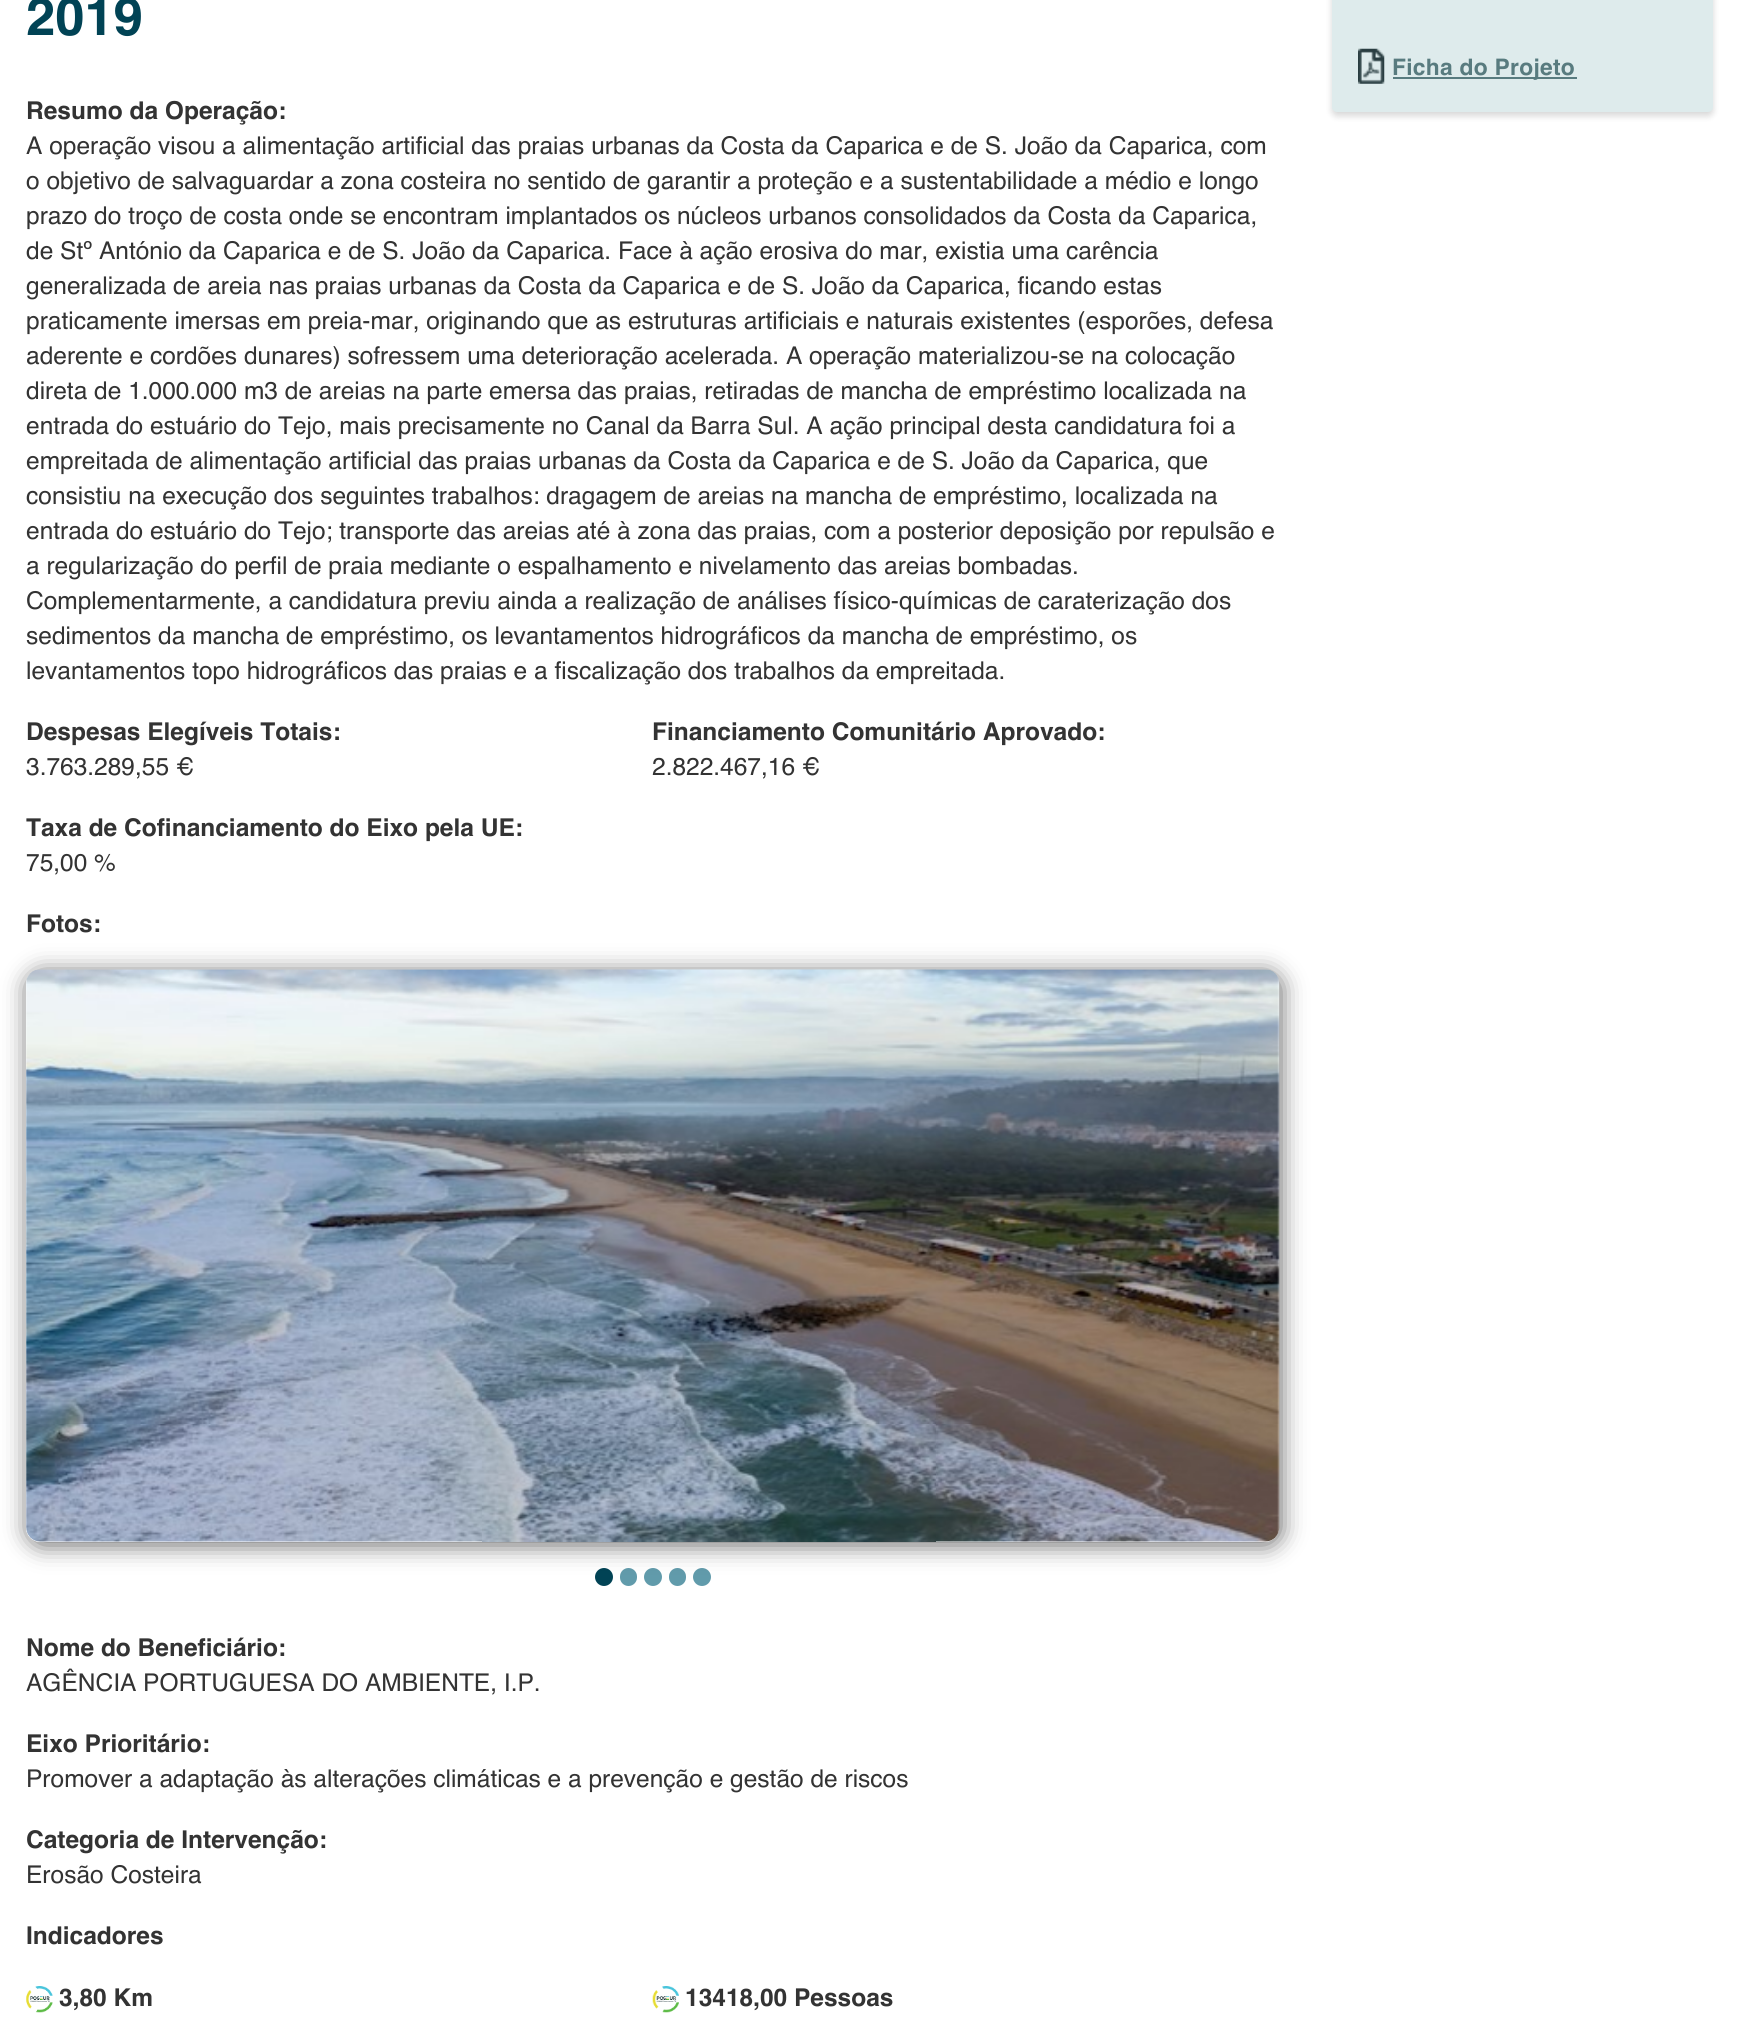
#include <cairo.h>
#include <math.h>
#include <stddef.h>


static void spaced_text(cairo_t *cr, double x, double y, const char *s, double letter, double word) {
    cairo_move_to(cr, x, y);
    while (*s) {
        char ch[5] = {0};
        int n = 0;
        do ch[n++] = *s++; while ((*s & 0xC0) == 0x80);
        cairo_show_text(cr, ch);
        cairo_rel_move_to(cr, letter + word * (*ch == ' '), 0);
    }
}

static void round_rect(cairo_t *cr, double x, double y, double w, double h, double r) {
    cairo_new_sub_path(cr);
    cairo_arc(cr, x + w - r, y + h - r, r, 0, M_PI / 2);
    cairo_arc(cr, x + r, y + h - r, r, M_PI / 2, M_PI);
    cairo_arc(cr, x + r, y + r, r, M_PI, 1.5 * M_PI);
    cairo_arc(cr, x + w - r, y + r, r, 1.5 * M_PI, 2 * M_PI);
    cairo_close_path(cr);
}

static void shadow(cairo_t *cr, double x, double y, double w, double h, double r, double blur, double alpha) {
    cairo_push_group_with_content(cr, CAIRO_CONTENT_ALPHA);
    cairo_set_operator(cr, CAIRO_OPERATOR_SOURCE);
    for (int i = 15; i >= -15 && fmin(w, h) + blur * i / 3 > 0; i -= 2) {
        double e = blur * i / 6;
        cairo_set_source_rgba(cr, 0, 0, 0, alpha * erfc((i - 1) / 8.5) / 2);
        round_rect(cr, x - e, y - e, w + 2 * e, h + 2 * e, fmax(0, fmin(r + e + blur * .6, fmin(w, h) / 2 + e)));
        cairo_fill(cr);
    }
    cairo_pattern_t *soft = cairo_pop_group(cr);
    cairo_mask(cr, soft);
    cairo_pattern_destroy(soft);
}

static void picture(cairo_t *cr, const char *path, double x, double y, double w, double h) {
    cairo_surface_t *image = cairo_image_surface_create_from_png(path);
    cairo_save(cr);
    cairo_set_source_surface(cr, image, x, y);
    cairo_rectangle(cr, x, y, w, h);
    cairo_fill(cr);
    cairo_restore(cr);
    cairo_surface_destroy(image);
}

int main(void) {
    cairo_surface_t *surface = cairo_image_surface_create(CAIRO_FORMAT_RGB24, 1738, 2026);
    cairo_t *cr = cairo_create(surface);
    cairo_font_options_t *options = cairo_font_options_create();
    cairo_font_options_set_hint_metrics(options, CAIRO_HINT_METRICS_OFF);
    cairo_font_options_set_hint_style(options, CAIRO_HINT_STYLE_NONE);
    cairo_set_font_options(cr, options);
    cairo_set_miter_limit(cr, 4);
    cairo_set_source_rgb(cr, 1, 1, 1);
    cairo_paint(cr);
    cairo_select_font_face(cr, "Helvetica", CAIRO_FONT_SLANT_NORMAL, CAIRO_FONT_WEIGHT_BOLD);
    cairo_set_font_size(cr, 52.5);
    cairo_set_source_rgb(cr, 0.004, 0.263, 0.333);
    cairo_move_to(cr, 26, 35);
    cairo_show_text(cr, "2019");
    cairo_set_font_size(cr, 24.5);
    cairo_set_source_rgb(cr, 0.2, 0.2, 0.2);
    cairo_move_to(cr, 26, 119);
    cairo_show_text(cr, "Resumo da Operação:");
    cairo_select_font_face(cr, "Helvetica", CAIRO_FONT_SLANT_NORMAL, CAIRO_FONT_WEIGHT_NORMAL);
    cairo_move_to(cr, 26, 154);
    cairo_show_text(cr, "A operação visou a alimentação artificial das praias urbanas da Costa da Caparica e de S. João da Caparica, com");
    cairo_move_to(cr, 26, 189);
    cairo_show_text(cr, "o objetivo de salvaguardar a zona costeira no sentido de garantir a proteção e a sustentabilidade a médio e longo");
    cairo_move_to(cr, 26, 224);
    cairo_show_text(cr, "prazo do troço de costa onde se encontram implantados os núcleos urbanos consolidados da Costa da Caparica,");
    cairo_move_to(cr, 26, 259);
    cairo_show_text(cr, "de Stº António da Caparica e de S. João da Caparica. Face à ação erosiva do mar, existia uma carência");
    cairo_move_to(cr, 26, 294);
    cairo_show_text(cr, "generalizada de areia nas praias urbanas da Costa da Caparica e de S. João da Caparica, ficando estas");
    cairo_move_to(cr, 26, 329);
    cairo_show_text(cr, "praticamente imersas em preia-mar, originando que as estruturas artificiais e naturais existentes (esporões, defesa");
    cairo_move_to(cr, 26, 364);
    cairo_show_text(cr, "aderente e cordões dunares) sofressem uma deterioração acelerada. A operação materializou-se na colocação");
    cairo_move_to(cr, 26, 399);
    cairo_show_text(cr, "direta de 1.000.000 m3 de areias na parte emersa das praias, retiradas de mancha de empréstimo localizada na");
    cairo_move_to(cr, 26, 434);
    cairo_show_text(cr, "entrada do estuário do Tejo, mais precisamente no Canal da Barra Sul. A ação principal desta candidatura foi a");
    cairo_move_to(cr, 26, 469);
    cairo_show_text(cr, "empreitada de alimentação artificial das praias urbanas da Costa da Caparica e de S. João da Caparica, que");
    cairo_move_to(cr, 26, 504);
    cairo_show_text(cr, "consistiu na execução dos seguintes trabalhos: dragagem de areias na mancha de empréstimo, localizada na");
    cairo_move_to(cr, 26, 539);
    cairo_show_text(cr, "entrada do estuário do Tejo; transporte das areias até à zona das praias, com a posterior deposição por repulsão e");
    cairo_move_to(cr, 26, 574);
    cairo_show_text(cr, "a regularização do perfil de praia mediante o espalhamento e nivelamento das areias bombadas.");
    cairo_move_to(cr, 26, 609);
    cairo_show_text(cr, "Complementarmente, a candidatura previu ainda a realização de análises físico-químicas de caraterização dos");
    cairo_move_to(cr, 26, 644);
    cairo_show_text(cr, "sedimentos da mancha de empréstimo, os levantamentos hidrográficos da mancha de empréstimo, os");
    cairo_move_to(cr, 26, 679);
    cairo_show_text(cr, "levantamentos topo hidrográficos das praias e a fiscalização dos trabalhos da empreitada.");
    cairo_select_font_face(cr, "Helvetica", CAIRO_FONT_SLANT_NORMAL, CAIRO_FONT_WEIGHT_BOLD);
    cairo_move_to(cr, 26, 740);
    cairo_show_text(cr, "Despesas Elegíveis Totais:");
    cairo_select_font_face(cr, "Helvetica", CAIRO_FONT_SLANT_NORMAL, CAIRO_FONT_WEIGHT_NORMAL);
    cairo_move_to(cr, 26, 775);
    cairo_show_text(cr, "3.763.289,55 €");
    cairo_select_font_face(cr, "Helvetica", CAIRO_FONT_SLANT_NORMAL, CAIRO_FONT_WEIGHT_BOLD);
    cairo_move_to(cr, 652, 740);
    cairo_show_text(cr, "Financiamento Comunitário Aprovado:");
    cairo_select_font_face(cr, "Helvetica", CAIRO_FONT_SLANT_NORMAL, CAIRO_FONT_WEIGHT_NORMAL);
    cairo_move_to(cr, 652, 775);
    cairo_show_text(cr, "2.822.467,16 €");
    cairo_select_font_face(cr, "Helvetica", CAIRO_FONT_SLANT_NORMAL, CAIRO_FONT_WEIGHT_BOLD);
    cairo_move_to(cr, 26, 836);
    cairo_show_text(cr, "Taxa de Cofinanciamento do Eixo pela UE:");
    cairo_select_font_face(cr, "Helvetica", CAIRO_FONT_SLANT_NORMAL, CAIRO_FONT_WEIGHT_NORMAL);
    cairo_move_to(cr, 26, 871);
    cairo_show_text(cr, "75,00 %");
    cairo_select_font_face(cr, "Helvetica", CAIRO_FONT_SLANT_NORMAL, CAIRO_FONT_WEIGHT_BOLD);
    cairo_move_to(cr, 26, 932);
    cairo_show_text(cr, "Fotos:");
    cairo_set_source_rgb(cr, 0.004, 0.263, 0.333);
    cairo_new_path(cr);
    cairo_arc(cr, 604, 1577, 9, 0, 2 * M_PI);
    cairo_fill(cr);
    cairo_set_source_rgb(cr, 0.38, 0.608, 0.671);
    round_rect(cr, 620, 1568, 17, 18, 8.5);
    cairo_fill(cr);
    cairo_arc(cr, 653, 1577, 9, 0, 2 * M_PI);
    cairo_fill(cr);
    round_rect(cr, 669, 1568, 17, 18, 8.5);
    cairo_fill(cr);
    cairo_arc(cr, 702, 1577, 9, 0, 2 * M_PI);
    cairo_fill(cr);
    cairo_save(cr);
    cairo_set_fill_rule(cr, CAIRO_FILL_RULE_EVEN_ODD);
    cairo_new_path(cr);
    cairo_move_to(cr, 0, 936);
    cairo_line_to(cr, 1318, 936);
    cairo_line_to(cr, 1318, 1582);
    cairo_line_to(cr, 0, 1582);
    cairo_close_path(cr);
    cairo_move_to(cr, 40, 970);
    cairo_line_to(cr, 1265, 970);
    cairo_curve_to(cr, 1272.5, 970, 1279, 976.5, 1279, 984);
    cairo_line_to(cr, 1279, 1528);
    cairo_curve_to(cr, 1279, 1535.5, 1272.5, 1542, 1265, 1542);
    cairo_line_to(cr, 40, 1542);
    cairo_curve_to(cr, 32.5, 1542, 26, 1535.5, 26, 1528);
    cairo_line_to(cr, 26, 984);
    cairo_curve_to(cr, 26, 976.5, 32.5, 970, 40, 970);
    cairo_close_path(cr);
    cairo_clip(cr);
    cairo_set_source_rgb(cr, 0, 0, 0);
    shadow(cr, 28, 973, 1253, 572, 14, 12, 0.6);
    cairo_restore(cr);
    picture(cr, "img1.png", 26, 969, 1254, 573);
    cairo_set_source_rgb(cr, 0.2, 0.2, 0.2);
    cairo_move_to(cr, 26, 1656);
    cairo_show_text(cr, "Nome do Beneficiário:");
    cairo_select_font_face(cr, "Helvetica", CAIRO_FONT_SLANT_NORMAL, CAIRO_FONT_WEIGHT_NORMAL);
    cairo_move_to(cr, 26, 1691);
    cairo_show_text(cr, "AGÊNCIA PORTUGUESA DO AMBIENTE, I.P.");
    cairo_select_font_face(cr, "Helvetica", CAIRO_FONT_SLANT_NORMAL, CAIRO_FONT_WEIGHT_BOLD);
    cairo_move_to(cr, 26, 1752);
    cairo_show_text(cr, "Eixo Prioritário:");
    cairo_select_font_face(cr, "Helvetica", CAIRO_FONT_SLANT_NORMAL, CAIRO_FONT_WEIGHT_NORMAL);
    cairo_move_to(cr, 26, 1787);
    cairo_show_text(cr, "Promover a adaptação às alterações climáticas e a prevenção e gestão de riscos");
    cairo_select_font_face(cr, "Helvetica", CAIRO_FONT_SLANT_NORMAL, CAIRO_FONT_WEIGHT_BOLD);
    cairo_move_to(cr, 26, 1848);
    cairo_show_text(cr, "Categoria de Intervenção:");
    cairo_select_font_face(cr, "Helvetica", CAIRO_FONT_SLANT_NORMAL, CAIRO_FONT_WEIGHT_NORMAL);
    cairo_move_to(cr, 26, 1883);
    cairo_show_text(cr, "Erosão Costeira");
    cairo_select_font_face(cr, "Helvetica", CAIRO_FONT_SLANT_NORMAL, CAIRO_FONT_WEIGHT_BOLD);
    cairo_move_to(cr, 26, 1944);
    cairo_show_text(cr, "Indicadores");
    picture(cr, "img2.png", 26, 1986, 27, 27);
    cairo_move_to(cr, 59, 2006);
    cairo_show_text(cr, "3,80 Km");
    picture(cr, "img3.png", 652, 1986, 27, 27);
    cairo_move_to(cr, 685, 2006);
    cairo_show_text(cr, "13418,00 Pessoas");
    cairo_set_source_rgb(cr, 0, 0, 0);
    shadow(cr, 1332, -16, 381, 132, 5, 3.5, 0.16);
    cairo_set_source_rgb(cr, 0.871, 0.918, 0.922);
    round_rect(cr, 1332, -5, 381, 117, 5);
    cairo_fill(cr);
    picture(cr, "img4.png", 1358, 48, 27, 36);
    cairo_set_source_rgb(cr, 0.345, 0.482, 0.498);
    cairo_rectangle(cr, 1393, 77, 184, 2);
    cairo_fill(cr);
    cairo_set_font_size(cr, 22.75);
    spaced_text(cr, 1392, 75, "Ficha do Projeto", 0.3, 0);
    cairo_surface_write_to_png(surface, "page.png");
    cairo_font_options_destroy(options);
    cairo_destroy(cr);
    cairo_surface_destroy(surface);
    return 0;
}
